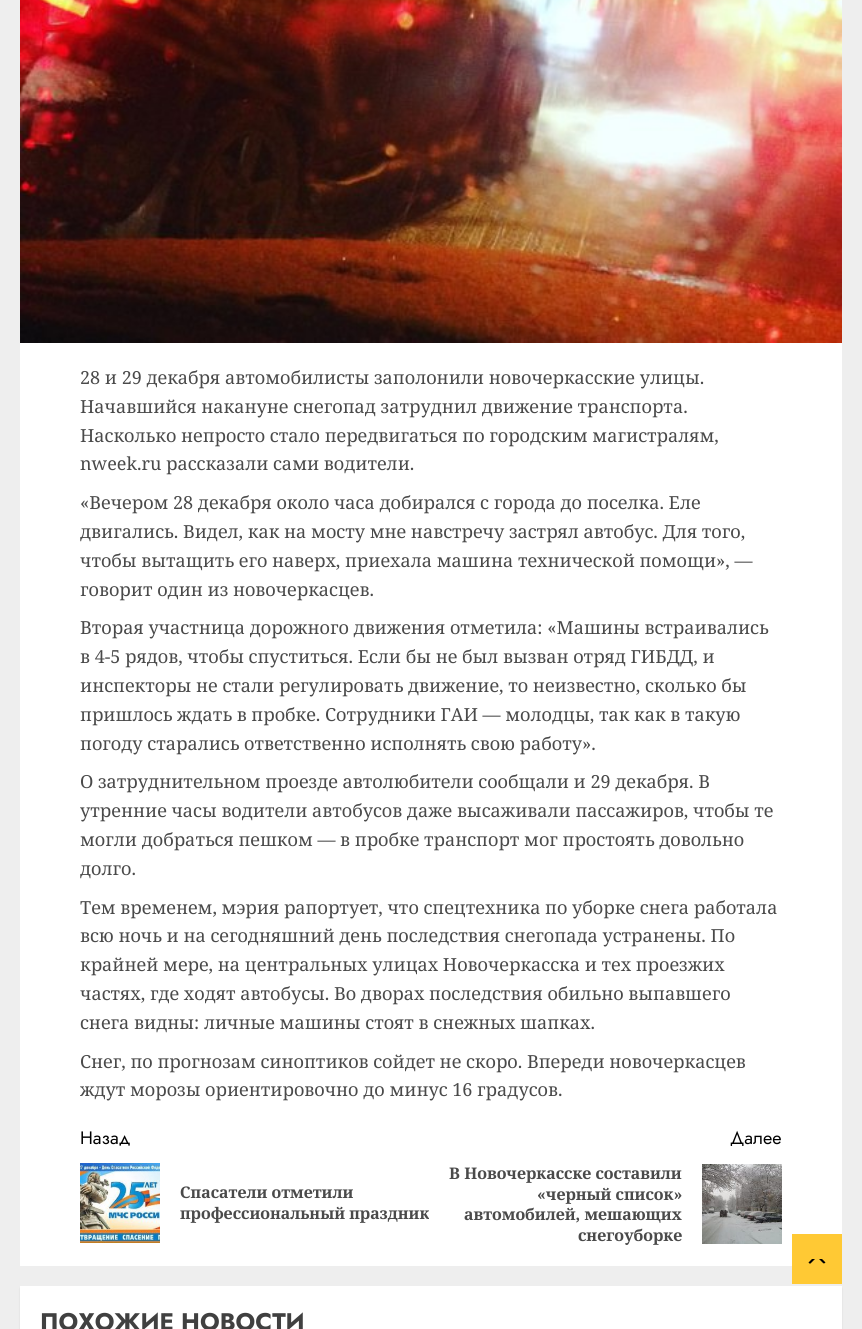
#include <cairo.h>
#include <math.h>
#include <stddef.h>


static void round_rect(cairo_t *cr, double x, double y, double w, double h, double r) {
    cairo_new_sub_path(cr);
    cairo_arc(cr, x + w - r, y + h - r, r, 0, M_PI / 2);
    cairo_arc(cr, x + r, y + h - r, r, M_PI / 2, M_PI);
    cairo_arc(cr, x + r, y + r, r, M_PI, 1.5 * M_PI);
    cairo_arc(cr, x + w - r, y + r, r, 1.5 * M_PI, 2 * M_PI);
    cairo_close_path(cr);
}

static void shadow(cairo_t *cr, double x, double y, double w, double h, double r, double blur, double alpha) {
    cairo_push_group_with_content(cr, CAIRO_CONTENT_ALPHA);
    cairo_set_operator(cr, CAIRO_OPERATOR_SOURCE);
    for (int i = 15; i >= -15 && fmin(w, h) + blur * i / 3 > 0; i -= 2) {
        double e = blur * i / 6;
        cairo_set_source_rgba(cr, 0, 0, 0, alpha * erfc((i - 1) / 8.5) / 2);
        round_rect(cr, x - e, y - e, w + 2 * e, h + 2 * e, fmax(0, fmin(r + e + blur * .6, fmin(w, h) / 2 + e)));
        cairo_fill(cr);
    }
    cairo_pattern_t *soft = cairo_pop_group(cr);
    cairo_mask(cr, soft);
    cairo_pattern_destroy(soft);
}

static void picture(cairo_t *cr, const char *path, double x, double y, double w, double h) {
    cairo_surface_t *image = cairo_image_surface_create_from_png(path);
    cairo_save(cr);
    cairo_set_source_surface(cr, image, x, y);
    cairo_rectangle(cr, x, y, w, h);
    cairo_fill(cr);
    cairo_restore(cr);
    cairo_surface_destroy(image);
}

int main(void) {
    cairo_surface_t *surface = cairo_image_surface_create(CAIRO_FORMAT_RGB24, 862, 1329);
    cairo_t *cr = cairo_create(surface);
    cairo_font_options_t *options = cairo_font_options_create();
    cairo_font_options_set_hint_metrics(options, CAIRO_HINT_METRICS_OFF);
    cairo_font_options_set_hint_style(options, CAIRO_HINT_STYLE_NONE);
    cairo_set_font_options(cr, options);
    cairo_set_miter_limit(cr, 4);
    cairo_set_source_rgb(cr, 0.933, 0.933, 0.933);
    cairo_paint(cr);
    cairo_set_source_rgb(cr, 1, 1, 1);
    cairo_rectangle(cr, 20, 343, 822, 923);
    cairo_fill(cr);
    picture(cr, "img1.png", 20, 0, 822, 343);
    cairo_select_font_face(cr, "Noto Serif", CAIRO_FONT_SLANT_NORMAL, CAIRO_FONT_WEIGHT_NORMAL);
    cairo_set_font_size(cr, 18);
    cairo_set_source_rgb(cr, 0.29, 0.29, 0.29);
    cairo_move_to(cr, 80, 384);
    cairo_show_text(cr, "28 и 29 декабря автомобилисты заполонили новочеркасские улицы.");
    cairo_move_to(cr, 80, 413);
    cairo_show_text(cr, "Начавшийся накануне снегопад затруднил движение транспорта.");
    cairo_move_to(cr, 80, 442);
    cairo_show_text(cr, "Насколько непросто стало передвигаться по городским магистралям,");
    cairo_move_to(cr, 80, 470);
    cairo_show_text(cr, "nweek.ru рассказали сами водители.");
    cairo_move_to(cr, 80, 509);
    cairo_show_text(cr, "«Вечером 28 декабря около часа добирался с города до поселка. Еле");
    cairo_move_to(cr, 80, 538);
    cairo_show_text(cr, "двигались. Видел, как на мосту мне навстречу застрял автобус. Для того,");
    cairo_move_to(cr, 80, 567);
    cairo_show_text(cr, "чтобы вытащить его наверх, приехала машина технической помощи», —");
    cairo_move_to(cr, 80, 596);
    cairo_show_text(cr, "говорит один из новочеркасцев.");
    cairo_move_to(cr, 80, 634);
    cairo_show_text(cr, "Вторая участница дорожного движения отметила: «Машины встраивались");
    cairo_move_to(cr, 80, 663);
    cairo_show_text(cr, "в 4-5 рядов, чтобы спуститься. Если бы не был вызван отряд ГИБДД, и");
    cairo_move_to(cr, 80, 692);
    cairo_show_text(cr, "инспекторы не стали регулировать движение, то неизвестно, сколько бы");
    cairo_move_to(cr, 80, 721);
    cairo_show_text(cr, "пришлось ждать в пробке. Сотрудники ГАИ — молодцы, так как в такую");
    cairo_move_to(cr, 80, 750);
    cairo_show_text(cr, "погоду старались ответственно исполнять свою работу».");
    cairo_move_to(cr, 80, 788);
    cairo_show_text(cr, "О затруднительном проезде автолюбители сообщали и 29 декабря. В");
    cairo_move_to(cr, 80, 817);
    cairo_show_text(cr, "утренние часы водители автобусов даже высаживали пассажиров, чтобы те");
    cairo_move_to(cr, 80, 846);
    cairo_show_text(cr, "могли добраться пешком — в пробке транспорт мог простоять довольно");
    cairo_move_to(cr, 80, 875);
    cairo_show_text(cr, "долго.");
    cairo_move_to(cr, 80, 914);
    cairo_show_text(cr, "Тем временем, мэрия рапортует, что спецтехника по уборке снега работала");
    cairo_move_to(cr, 80, 942);
    cairo_show_text(cr, "всю ночь и на сегодняшний день последствия снегопада устранены. По");
    cairo_move_to(cr, 80, 971);
    cairo_show_text(cr, "крайней мере, на центральных улицах Новочеркасска и тех проезжих");
    cairo_move_to(cr, 80, 1000);
    cairo_show_text(cr, "частях, где ходят автобусы. Во дворах последствия обильно выпавшего");
    cairo_move_to(cr, 80, 1029);
    cairo_show_text(cr, "снега видны: личные машины стоят в снежных шапках.");
    cairo_move_to(cr, 80, 1068);
    cairo_show_text(cr, "Снег, по прогнозам синоптиков сойдет не скоро. Впереди новочеркасцев");
    cairo_move_to(cr, 80, 1096);
    cairo_show_text(cr, "ждут морозы ориентировочно до минус 16 градусов.");
    cairo_select_font_face(cr, "Jost", CAIRO_FONT_SLANT_NORMAL, CAIRO_FONT_WEIGHT_NORMAL);
    cairo_set_source_rgb(cr, 0, 0, 0);
    cairo_move_to(cr, 80, 1144);
    cairo_show_text(cr, "Назад");
    picture(cr, "img2.png", 80, 1163, 80, 80);
    cairo_select_font_face(cr, "Noto Serif", CAIRO_FONT_SLANT_NORMAL, CAIRO_FONT_WEIGHT_BOLD);
    cairo_set_font_size(cr, 16);
    cairo_set_source_rgb(cr, 0.29, 0.29, 0.29);
    cairo_move_to(cr, 180, 1198);
    cairo_show_text(cr, "Спасатели отметили");
    cairo_move_to(cr, 180, 1219);
    cairo_show_text(cr, "профессиональный праздник");
    cairo_select_font_face(cr, "Jost", CAIRO_FONT_SLANT_NORMAL, CAIRO_FONT_WEIGHT_NORMAL);
    cairo_set_font_size(cr, 18);
    cairo_set_source_rgb(cr, 0, 0, 0);
    cairo_move_to(cr, 730, 1144);
    cairo_show_text(cr, "Далее");
    cairo_select_font_face(cr, "Noto Serif", CAIRO_FONT_SLANT_NORMAL, CAIRO_FONT_WEIGHT_BOLD);
    cairo_set_font_size(cr, 16);
    cairo_set_source_rgb(cr, 0.29, 0.29, 0.29);
    cairo_move_to(cr, 449, 1179);
    cairo_show_text(cr, "В Новочеркасске составили");
    cairo_move_to(cr, 537, 1200);
    cairo_show_text(cr, "«черный список»");
    cairo_move_to(cr, 464, 1220);
    cairo_show_text(cr, "автомобилей, мешающих");
    cairo_move_to(cr, 578, 1241);
    cairo_show_text(cr, "снегоуборке");
    picture(cr, "img3.png", 702, 1164, 80, 80);
    cairo_set_source_rgb(cr, 0, 0, 0);
    shadow(cr, 20, 1288, 822, 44, 0, 1, 0.08);
    cairo_set_source_rgb(cr, 1, 1, 1);
    cairo_rectangle(cr, 20, 1286, 822, 43);
    cairo_fill(cr);
    cairo_select_font_face(cr, "Jost", CAIRO_FONT_SLANT_NORMAL, CAIRO_FONT_WEIGHT_BOLD);
    cairo_set_font_size(cr, 24);
    cairo_set_source_rgb(cr, 0.251, 0.251, 0.251);
    cairo_move_to(cr, 40, 1330);
    cairo_show_text(cr, "ПОХОЖИЕ НОВОСТИ");
    cairo_set_source_rgb(cr, 1, 0.788, 0.204);
    cairo_rectangle(cr, 792, 1234, 50, 50);
    cairo_fill(cr);
    cairo_set_source_rgb(cr, 0, 0, 0);
    cairo_new_path(cr);
    cairo_move_to(cr, 812, 1264);
    cairo_curve_to(cr, 815, 1264, 823.5, 1265, 825.5, 1262.5);
    cairo_line_to(cr, 822, 1259);
    cairo_line_to(cr, 812, 1259);
    cairo_line_to(cr, 808.5, 1262.5);
    cairo_curve_to(cr, 809, 1263.5, 810.5, 1264, 812, 1264);
    cairo_close_path(cr);
    cairo_fill(cr);
    cairo_set_source_rgb(cr, 1, 0.788, 0.204);
    cairo_new_path(cr);
    cairo_move_to(cr, 827, 1267);
    cairo_line_to(cr, 807, 1267);
    cairo_line_to(cr, 817, 1257);
    cairo_close_path(cr);
    cairo_fill(cr);
    cairo_surface_write_to_png(surface, "page.png");
    cairo_font_options_destroy(options);
    cairo_destroy(cr);
    cairo_surface_destroy(surface);
    return 0;
}
